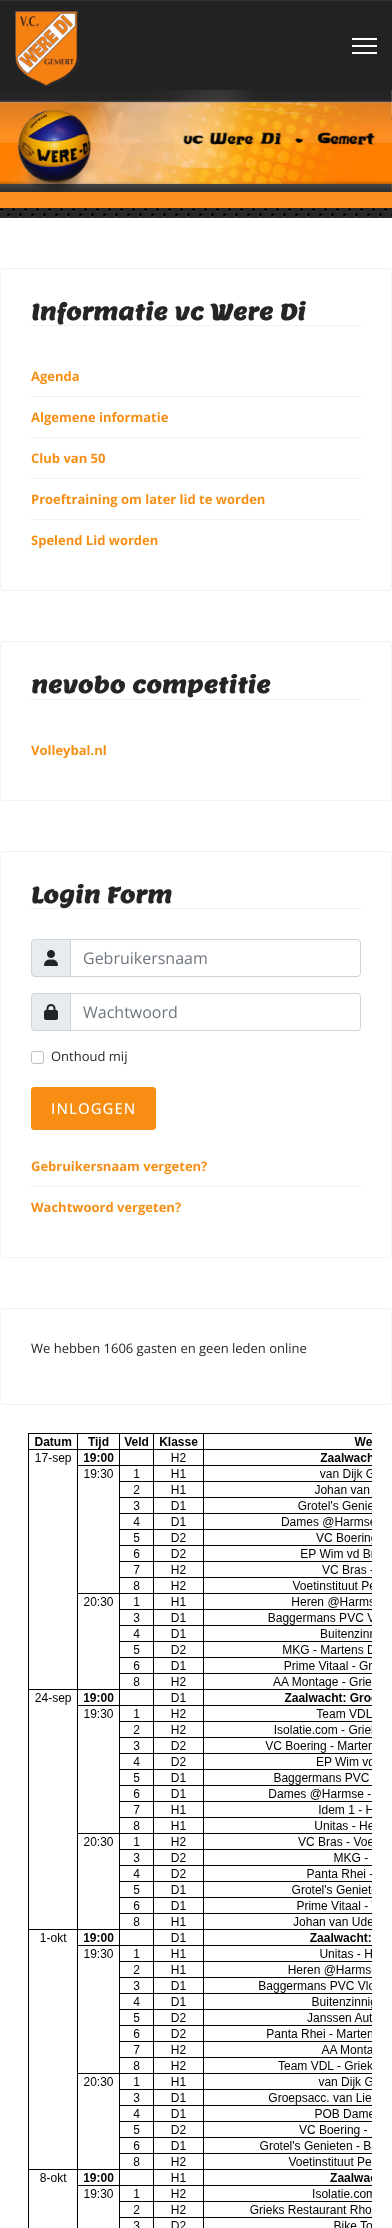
#include <cairo.h>
#include <math.h>
#include <stddef.h>


static void spaced_text(cairo_t *cr, double x, double y, const char *s, double letter, double word) {
    cairo_move_to(cr, x, y);
    while (*s) {
        char ch[5] = {0};
        int n = 0;
        do ch[n++] = *s++; while ((*s & 0xC0) == 0x80);
        cairo_show_text(cr, ch);
        cairo_rel_move_to(cr, letter + word * (*ch == ' '), 0);
    }
}

static void round_rect(cairo_t *cr, double x, double y, double w, double h, double r) {
    cairo_new_sub_path(cr);
    cairo_arc(cr, x + w - r, y + h - r, r, 0, M_PI / 2);
    cairo_arc(cr, x + r, y + h - r, r, M_PI / 2, M_PI);
    cairo_arc(cr, x + r, y + r, r, M_PI, 1.5 * M_PI);
    cairo_arc(cr, x + w - r, y + r, r, 1.5 * M_PI, 2 * M_PI);
    cairo_close_path(cr);
}

static void shadow(cairo_t *cr, double x, double y, double w, double h, double r, double blur, double alpha) {
    cairo_push_group_with_content(cr, CAIRO_CONTENT_ALPHA);
    cairo_set_operator(cr, CAIRO_OPERATOR_SOURCE);
    for (int i = 15; i >= -15 && fmin(w, h) + blur * i / 3 > 0; i -= 2) {
        double e = blur * i / 6;
        cairo_set_source_rgba(cr, 0, 0, 0, alpha * erfc((i - 1) / 8.5) / 2);
        round_rect(cr, x - e, y - e, w + 2 * e, h + 2 * e, fmax(0, fmin(r + e + blur * .6, fmin(w, h) / 2 + e)));
        cairo_fill(cr);
    }
    cairo_pattern_t *soft = cairo_pop_group(cr);
    cairo_mask(cr, soft);
    cairo_pattern_destroy(soft);
}

static void picture(cairo_t *cr, const char *path, double x, double y, double w, double h) {
    cairo_surface_t *image = cairo_image_surface_create_from_png(path);
    cairo_save(cr);
    cairo_set_source_surface(cr, image, x, y);
    cairo_rectangle(cr, x, y, w, h);
    cairo_fill(cr);
    cairo_restore(cr);
    cairo_surface_destroy(image);
}

int main(void) {
    cairo_surface_t *surface = cairo_image_surface_create(CAIRO_FORMAT_RGB24, 392, 2228);
    cairo_t *cr = cairo_create(surface);
    cairo_font_options_t *options = cairo_font_options_create();
    cairo_font_options_set_hint_metrics(options, CAIRO_HINT_METRICS_OFF);
    cairo_font_options_set_hint_style(options, CAIRO_HINT_STYLE_NONE);
    cairo_set_font_options(cr, options);
    cairo_set_miter_limit(cr, 4);
    cairo_set_source_rgb(cr, 1, 1, 1);
    cairo_paint(cr);
    picture(cr, "img2.png", 0, 116, 392, 92);
    picture(cr, "img3.png", 0, 90, 392, 102);
    cairo_set_source_rgb(cr, 0, 0, 0);
    shadow(cr, 0, 0, 392, 90, 0, 2, 0.1);
    cairo_set_source_rgb(cr, 0.133, 0.133, 0.133);
    cairo_rectangle(cr, 0, 1, 392, 89);
    cairo_fill(cr);
    cairo_set_source_rgb(cr, 0.196, 0.196, 0.196);
    cairo_rectangle(cr, 0, 0, 392, 1);
    cairo_fill(cr);
    picture(cr, "img1.png", 15, 11, 64, 75);
    cairo_set_source_rgb(cr, 1, 1, 1);
    cairo_rectangle(cr, 352, 38, 25, 2);
    cairo_fill(cr);
    cairo_rectangle(cr, 352, 45, 25, 2);
    cairo_fill(cr);
    cairo_rectangle(cr, 352, 52, 25, 2);
    cairo_fill(cr);
    picture(cr, "img4.png", 0, 208, 392, 10);
    round_rect(cr, 0.5, 268.5, 391, 322, 2.5);
    cairo_set_source_rgb(cr, 0.953, 0.953, 0.953);
    cairo_set_line_width(cr, 1);
    cairo_stroke(cr);
    cairo_rectangle(cr, 31, 325, 330, 1);
    cairo_fill(cr);
    cairo_select_font_face(cr, "Lemon", CAIRO_FONT_SLANT_NORMAL, CAIRO_FONT_WEIGHT_BOLD);
    cairo_set_font_size(cr, 22);
    cairo_set_source_rgb(cr, 0.145, 0.145, 0.145);
    cairo_move_to(cr, 31, 320);
    cairo_show_text(cr, "Informatie vc Were Di");
    cairo_set_source_rgb(cr, 0.953, 0.953, 0.953);
    cairo_rectangle(cr, 31, 396, 330, 1);
    cairo_fill(cr);
    cairo_select_font_face(cr, "Open Sans", CAIRO_FONT_SLANT_NORMAL, CAIRO_FONT_WEIGHT_BOLD);
    cairo_set_font_size(cr, 13);
    cairo_set_source_rgb(cr, 0.965, 0.557, 0.075);
    cairo_move_to(cr, 31, 381);
    cairo_show_text(cr, "Agenda");
    cairo_set_source_rgb(cr, 0.953, 0.953, 0.953);
    cairo_rectangle(cr, 31, 437, 330, 1);
    cairo_fill(cr);
    cairo_set_source_rgb(cr, 0.965, 0.557, 0.075);
    cairo_move_to(cr, 31, 422);
    cairo_show_text(cr, "Algemene informatie");
    cairo_set_source_rgb(cr, 0.953, 0.953, 0.953);
    cairo_rectangle(cr, 31, 478, 330, 1);
    cairo_fill(cr);
    cairo_set_source_rgb(cr, 0.965, 0.557, 0.075);
    cairo_move_to(cr, 31, 463);
    cairo_show_text(cr, "Club van 50");
    cairo_set_source_rgb(cr, 0.953, 0.953, 0.953);
    cairo_rectangle(cr, 31, 519, 330, 1);
    cairo_fill(cr);
    cairo_set_source_rgb(cr, 0.965, 0.557, 0.075);
    cairo_move_to(cr, 31, 504);
    cairo_show_text(cr, "Proeftraining om later lid te worden");
    cairo_move_to(cr, 31, 545);
    cairo_show_text(cr, "Spelend Lid worden");
    round_rect(cr, 0.5, 641.5, 391, 159, 2.5);
    cairo_set_source_rgb(cr, 0.953, 0.953, 0.953);
    cairo_stroke(cr);
    cairo_rectangle(cr, 31, 699, 330, 1);
    cairo_fill(cr);
    cairo_select_font_face(cr, "Lemon", CAIRO_FONT_SLANT_NORMAL, CAIRO_FONT_WEIGHT_BOLD);
    cairo_set_font_size(cr, 22);
    cairo_set_source_rgb(cr, 0.145, 0.145, 0.145);
    cairo_move_to(cr, 31, 693);
    cairo_show_text(cr, "nevobo competitie");
    cairo_select_font_face(cr, "Open Sans", CAIRO_FONT_SLANT_NORMAL, CAIRO_FONT_WEIGHT_BOLD);
    cairo_set_font_size(cr, 13);
    cairo_set_source_rgb(cr, 0.965, 0.557, 0.075);
    cairo_move_to(cr, 31, 755);
    cairo_show_text(cr, "Volleybal.nl");
    round_rect(cr, 0.5, 851.5, 391, 406, 2.5);
    cairo_set_source_rgb(cr, 0.953, 0.953, 0.953);
    cairo_stroke(cr);
    cairo_rectangle(cr, 31, 908, 330, 1);
    cairo_fill(cr);
    cairo_select_font_face(cr, "Lemon", CAIRO_FONT_SLANT_NORMAL, CAIRO_FONT_WEIGHT_BOLD);
    cairo_set_font_size(cr, 22);
    cairo_set_source_rgb(cr, 0.145, 0.145, 0.145);
    cairo_move_to(cr, 31, 903);
    cairo_show_text(cr, "Login Form");
    cairo_set_source_rgb(cr, 0.914, 0.925, 0.937);
    cairo_new_path(cr);
    cairo_move_to(cr, 35, 939.5);
    cairo_line_to(cr, 70.5, 939.5);
    cairo_line_to(cr, 70.5, 976.5);
    cairo_line_to(cr, 35, 976.5);
    cairo_curve_to(cr, 33, 976.5, 31.5, 975, 31.5, 973);
    cairo_line_to(cr, 31.5, 943);
    cairo_curve_to(cr, 31.5, 941, 33, 939.5, 35, 939.5);
    cairo_close_path(cr);
    cairo_fill_preserve(cr);
    cairo_set_source_rgb(cr, 0.808, 0.831, 0.855);
    cairo_stroke(cr);
    picture(cr, "img5.png", 44, 950, 14, 16);
    cairo_new_path(cr);
    cairo_move_to(cr, 70.5, 939.5);
    cairo_line_to(cr, 357, 939.5);
    cairo_curve_to(cr, 359, 939.5, 360.5, 941, 360.5, 943);
    cairo_line_to(cr, 360.5, 973);
    cairo_curve_to(cr, 360.5, 975, 359, 976.5, 357, 976.5);
    cairo_line_to(cr, 70.5, 976.5);
    cairo_close_path(cr);
    cairo_stroke(cr);
    cairo_select_font_face(cr, "Open Sans", CAIRO_FONT_SLANT_NORMAL, CAIRO_FONT_WEIGHT_NORMAL);
    cairo_set_font_size(cr, 16);
    cairo_set_source_rgb(cr, 0.424, 0.459, 0.49);
    cairo_move_to(cr, 83, 964);
    cairo_show_text(cr, "Gebruikersnaam");
    cairo_set_source_rgb(cr, 0.914, 0.925, 0.937);
    cairo_new_path(cr);
    cairo_move_to(cr, 35, 993.5);
    cairo_line_to(cr, 70.5, 993.5);
    cairo_line_to(cr, 70.5, 1030.5);
    cairo_line_to(cr, 35, 1030.5);
    cairo_curve_to(cr, 33, 1030.5, 31.5, 1029, 31.5, 1027);
    cairo_line_to(cr, 31.5, 997);
    cairo_curve_to(cr, 31.5, 995, 33, 993.5, 35, 993.5);
    cairo_close_path(cr);
    cairo_fill_preserve(cr);
    cairo_set_source_rgb(cr, 0.808, 0.831, 0.855);
    cairo_stroke(cr);
    picture(cr, "img6.png", 44, 1004, 14, 16);
    cairo_new_path(cr);
    cairo_move_to(cr, 70.5, 993.5);
    cairo_line_to(cr, 357, 993.5);
    cairo_curve_to(cr, 359, 993.5, 360.5, 995, 360.5, 997);
    cairo_line_to(cr, 360.5, 1027);
    cairo_curve_to(cr, 360.5, 1029, 359, 1030.5, 357, 1030.5);
    cairo_line_to(cr, 70.5, 1030.5);
    cairo_close_path(cr);
    cairo_stroke(cr);
    cairo_set_source_rgb(cr, 0.424, 0.459, 0.49);
    cairo_move_to(cr, 83, 1018);
    cairo_show_text(cr, "Wachtwoord");
    round_rect(cr, 31.5, 1051.5, 12, 12, 2.5);
    cairo_set_source_rgb(cr, 0.749, 0.749, 0.749);
    cairo_stroke(cr);
    cairo_set_font_size(cr, 13);
    cairo_set_source_rgb(cr, 0.145, 0.145, 0.145);
    cairo_move_to(cr, 51, 1061);
    cairo_show_text(cr, "Onthoud mij");
    cairo_set_source_rgb(cr, 0.965, 0.557, 0.075);
    round_rect(cr, 31, 1087, 125, 43, 3);
    cairo_fill(cr);
    cairo_select_font_face(cr, "Open Sans Medium", CAIRO_FONT_SLANT_NORMAL, CAIRO_FONT_WEIGHT_NORMAL);
    cairo_set_font_size(cr, 15);
    cairo_set_source_rgb(cr, 1, 1, 1);
    spaced_text(cr, 51, 1114, "INLOGGEN", 1, 0);
    cairo_set_source_rgb(cr, 0.953, 0.953, 0.953);
    cairo_rectangle(cr, 31, 1186, 330, 1);
    cairo_fill(cr);
    cairo_select_font_face(cr, "Open Sans", CAIRO_FONT_SLANT_NORMAL, CAIRO_FONT_WEIGHT_BOLD);
    cairo_set_font_size(cr, 13);
    cairo_set_source_rgb(cr, 0.965, 0.557, 0.075);
    cairo_move_to(cr, 31, 1171);
    cairo_show_text(cr, "Gebruikersnaam vergeten?");
    cairo_move_to(cr, 31, 1212);
    cairo_show_text(cr, "Wachtwoord vergeten?");
    round_rect(cr, 0.5, 1308.5, 391, 96, 2.5);
    cairo_set_source_rgb(cr, 0.953, 0.953, 0.953);
    cairo_stroke(cr);
    cairo_select_font_face(cr, "Open Sans", CAIRO_FONT_SLANT_NORMAL, CAIRO_FONT_WEIGHT_NORMAL);
    cairo_set_source_rgb(cr, 0.145, 0.145, 0.145);
    cairo_move_to(cr, 31, 1353);
    cairo_show_text(cr, "We hebben 1606 gasten en geen leden online");
    picture(cr, "img7.png", 28, 1433, 344, 795);
    cairo_surface_write_to_png(surface, "page.png");
    cairo_font_options_destroy(options);
    cairo_destroy(cr);
    cairo_surface_destroy(surface);
    return 0;
}
